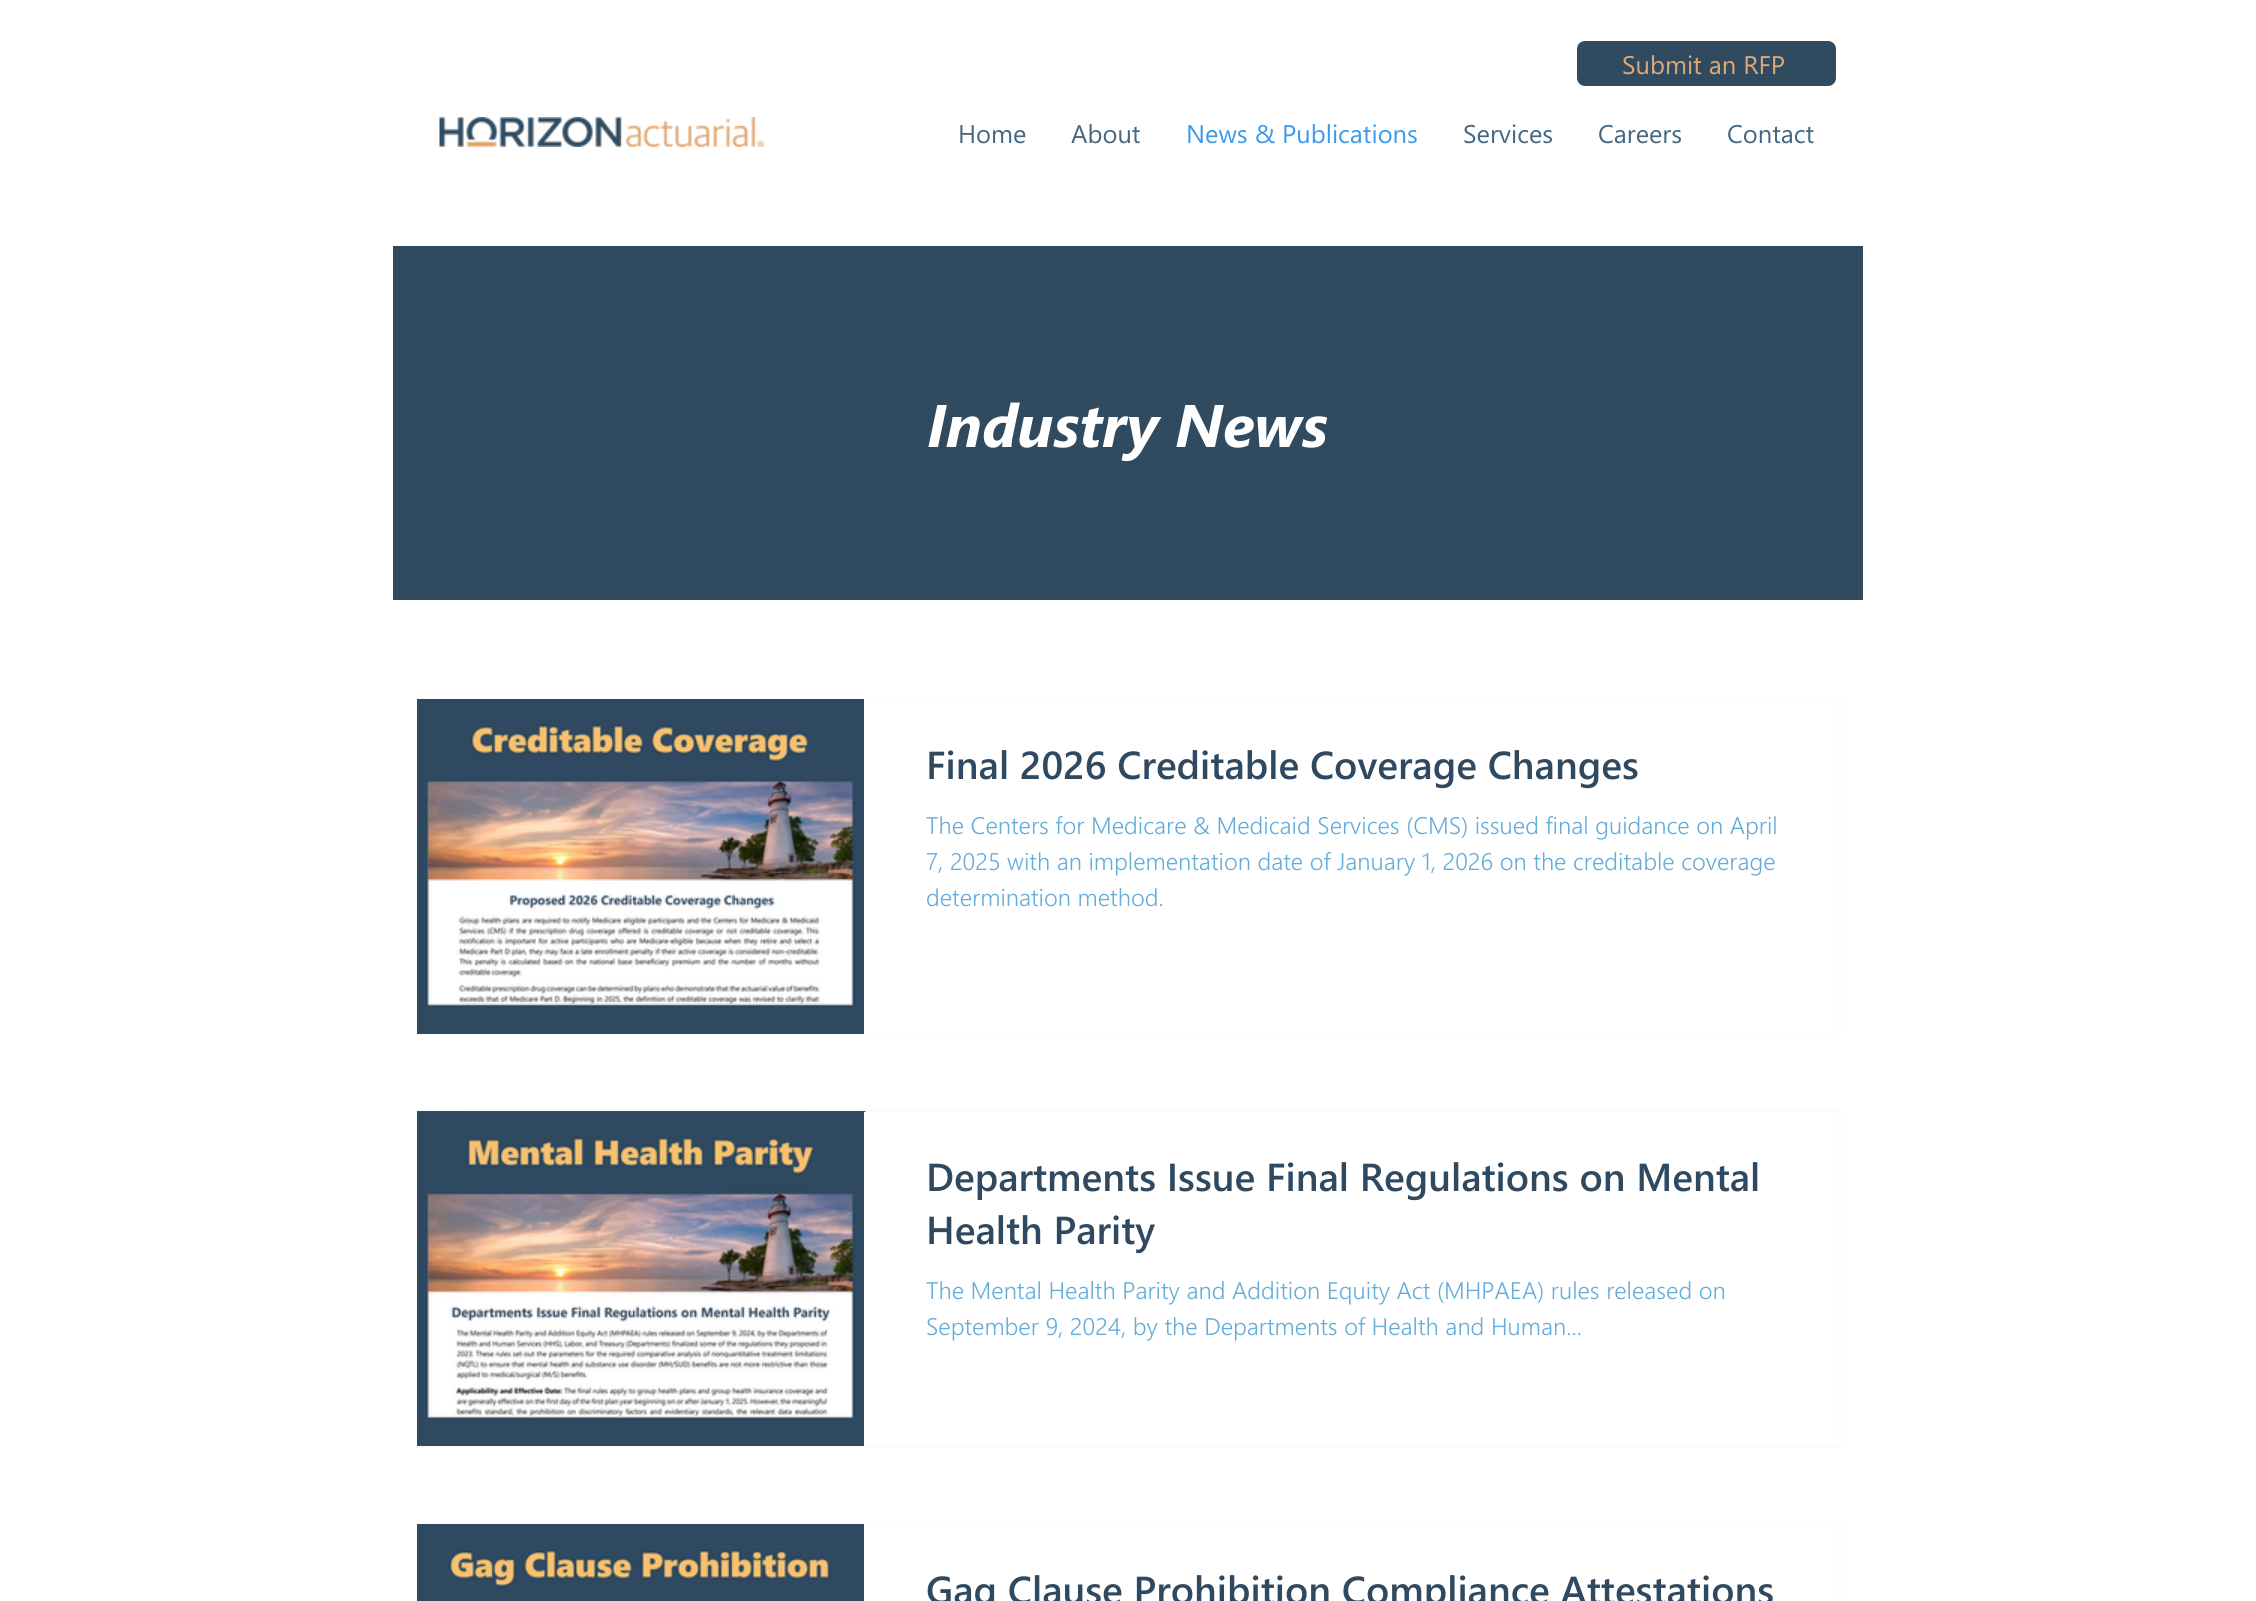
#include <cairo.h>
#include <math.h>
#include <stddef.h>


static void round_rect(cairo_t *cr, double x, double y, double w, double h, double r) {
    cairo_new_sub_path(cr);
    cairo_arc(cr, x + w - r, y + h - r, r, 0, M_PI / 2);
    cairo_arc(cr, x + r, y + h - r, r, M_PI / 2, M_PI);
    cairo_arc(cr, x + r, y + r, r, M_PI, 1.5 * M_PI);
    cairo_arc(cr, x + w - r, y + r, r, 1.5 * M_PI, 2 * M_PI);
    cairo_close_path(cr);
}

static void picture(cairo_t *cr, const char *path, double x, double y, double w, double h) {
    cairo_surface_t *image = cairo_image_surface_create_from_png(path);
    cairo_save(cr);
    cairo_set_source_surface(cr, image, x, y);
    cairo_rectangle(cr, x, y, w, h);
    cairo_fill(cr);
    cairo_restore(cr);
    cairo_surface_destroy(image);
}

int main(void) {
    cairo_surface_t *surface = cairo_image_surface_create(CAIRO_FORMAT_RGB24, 2256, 1601);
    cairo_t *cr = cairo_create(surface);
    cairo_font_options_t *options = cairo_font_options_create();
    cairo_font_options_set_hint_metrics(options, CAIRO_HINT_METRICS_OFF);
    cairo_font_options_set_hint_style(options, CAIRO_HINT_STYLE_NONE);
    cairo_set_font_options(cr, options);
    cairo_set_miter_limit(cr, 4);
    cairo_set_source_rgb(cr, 1, 1, 1);
    cairo_paint(cr);
    cairo_set_source_rgb(cr, 0.188, 0.294, 0.376);
    round_rect(cr, 1577, 41, 259, 45, 8);
    cairo_fill(cr);
    cairo_select_font_face(cr, "Segoe UI", CAIRO_FONT_SLANT_NORMAL, CAIRO_FONT_WEIGHT_NORMAL);
    cairo_set_font_size(cr, 25.5);
    cairo_set_source_rgb(cr, 0.855, 0.667, 0.463);
    cairo_move_to(cr, 1622, 74);
    cairo_show_text(cr, "Submit an RFP");
    picture(cr, "img1.png", 439, 117, 326, 30);
    cairo_select_font_face(cr, "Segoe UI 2", CAIRO_FONT_SLANT_NORMAL, CAIRO_FONT_WEIGHT_NORMAL);
    cairo_set_source_rgb(cr, 0.267, 0.408, 0.518);
    cairo_move_to(cr, 958, 143);
    cairo_show_text(cr, "Home");
    cairo_move_to(cr, 1071, 143);
    cairo_show_text(cr, "About");
    cairo_set_source_rgb(cr, 0.239, 0.608, 0.914);
    cairo_move_to(cr, 1186, 143);
    cairo_show_text(cr, "News & Publications");
    cairo_set_source_rgb(cr, 0.267, 0.408, 0.518);
    cairo_move_to(cr, 1463, 143);
    cairo_show_text(cr, "Services");
    cairo_move_to(cr, 1598, 143);
    cairo_show_text(cr, "Careers");
    cairo_move_to(cr, 1727, 143);
    cairo_show_text(cr, "Contact");
    cairo_set_source_rgb(cr, 0.188, 0.294, 0.376);
    cairo_rectangle(cr, 393, 246, 1470, 354);
    cairo_fill(cr);
    cairo_select_font_face(cr, "Segoe UI", CAIRO_FONT_SLANT_ITALIC, CAIRO_FONT_WEIGHT_BOLD);
    cairo_set_font_size(cr, 60);
    cairo_set_source_rgb(cr, 1, 1, 1);
    cairo_move_to(cr, 927, 447);
    cairo_show_text(cr, "Industry News");
    cairo_rectangle(cr, 417, 699, 1423, 335);
    cairo_set_source_rgb(cr, 0.984, 0.984, 0.984);
    cairo_stroke(cr);
    picture(cr, "img2.png", 417, 699, 447, 335);
    cairo_set_source_rgb(cr, 1, 1, 1);
    cairo_rectangle(cr, 864, 699, 975, 335);
    cairo_fill(cr);
    cairo_select_font_face(cr, "Segoe UI SemiBold", CAIRO_FONT_SLANT_NORMAL, CAIRO_FONT_WEIGHT_NORMAL);
    cairo_set_font_size(cr, 39);
    cairo_set_source_rgb(cr, 0.184, 0.29, 0.376);
    cairo_move_to(cr, 926, 779);
    cairo_show_text(cr, "Final 2026 Creditable Coverage Changes");
    cairo_select_font_face(cr, "Segoe UI Light", CAIRO_FONT_SLANT_NORMAL, CAIRO_FONT_WEIGHT_NORMAL);
    cairo_set_font_size(cr, 24);
    cairo_set_source_rgb(cr, 0.392, 0.675, 0.851);
    cairo_move_to(cr, 926, 834);
    cairo_show_text(cr, "The Centers for Medicare & Medicaid Services (CMS) issued final guidance on April");
    cairo_move_to(cr, 926, 870);
    cairo_show_text(cr, "7, 2025 with an implementation date of January 1, 2026 on the creditable coverage");
    cairo_move_to(cr, 926, 906);
    cairo_show_text(cr, "determination method.");
    cairo_rectangle(cr, 417, 1111, 1423, 336);
    cairo_set_source_rgb(cr, 0.984, 0.984, 0.984);
    cairo_stroke(cr);
    picture(cr, "img3.png", 417, 1111, 449, 1);
    picture(cr, "img4.png", 417, 1112, 447, 334);
    cairo_select_font_face(cr, "Segoe UI SemiBold", CAIRO_FONT_SLANT_NORMAL, CAIRO_FONT_WEIGHT_NORMAL);
    cairo_set_font_size(cr, 39);
    cairo_set_source_rgb(cr, 0.184, 0.29, 0.376);
    cairo_move_to(cr, 926, 1191);
    cairo_show_text(cr, "Departments Issue Final Regulations on Mental");
    cairo_move_to(cr, 926, 1244);
    cairo_show_text(cr, "Health Parity");
    cairo_select_font_face(cr, "Segoe UI Light", CAIRO_FONT_SLANT_NORMAL, CAIRO_FONT_WEIGHT_NORMAL);
    cairo_set_font_size(cr, 24);
    cairo_set_source_rgb(cr, 0.392, 0.675, 0.851);
    cairo_move_to(cr, 926, 1299);
    cairo_show_text(cr, "The Mental Health Parity and Addition Equity Act (MHPAEA) rules released on");
    cairo_move_to(cr, 926, 1335);
    cairo_show_text(cr, "September 9, 2024, by the Departments of Health and Human...");
    cairo_rectangle(cr, 417, 1524, 1423, 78);
    cairo_set_source_rgb(cr, 0.984, 0.984, 0.984);
    cairo_stroke(cr);
    picture(cr, "img5.png", 417, 1524, 447, 77);
    cairo_set_source_rgb(cr, 1, 1, 1);
    cairo_rectangle(cr, 864, 1524, 975, 1);
    cairo_fill(cr);
    cairo_select_font_face(cr, "Segoe UI SemiBold", CAIRO_FONT_SLANT_NORMAL, CAIRO_FONT_WEIGHT_NORMAL);
    cairo_set_font_size(cr, 39);
    cairo_set_source_rgb(cr, 0.184, 0.29, 0.376);
    cairo_move_to(cr, 926, 1604);
    cairo_show_text(cr, "Gag Clause Prohibition Compliance Attestations");
    cairo_surface_write_to_png(surface, "page.png");
    cairo_font_options_destroy(options);
    cairo_destroy(cr);
    cairo_surface_destroy(surface);
    return 0;
}
